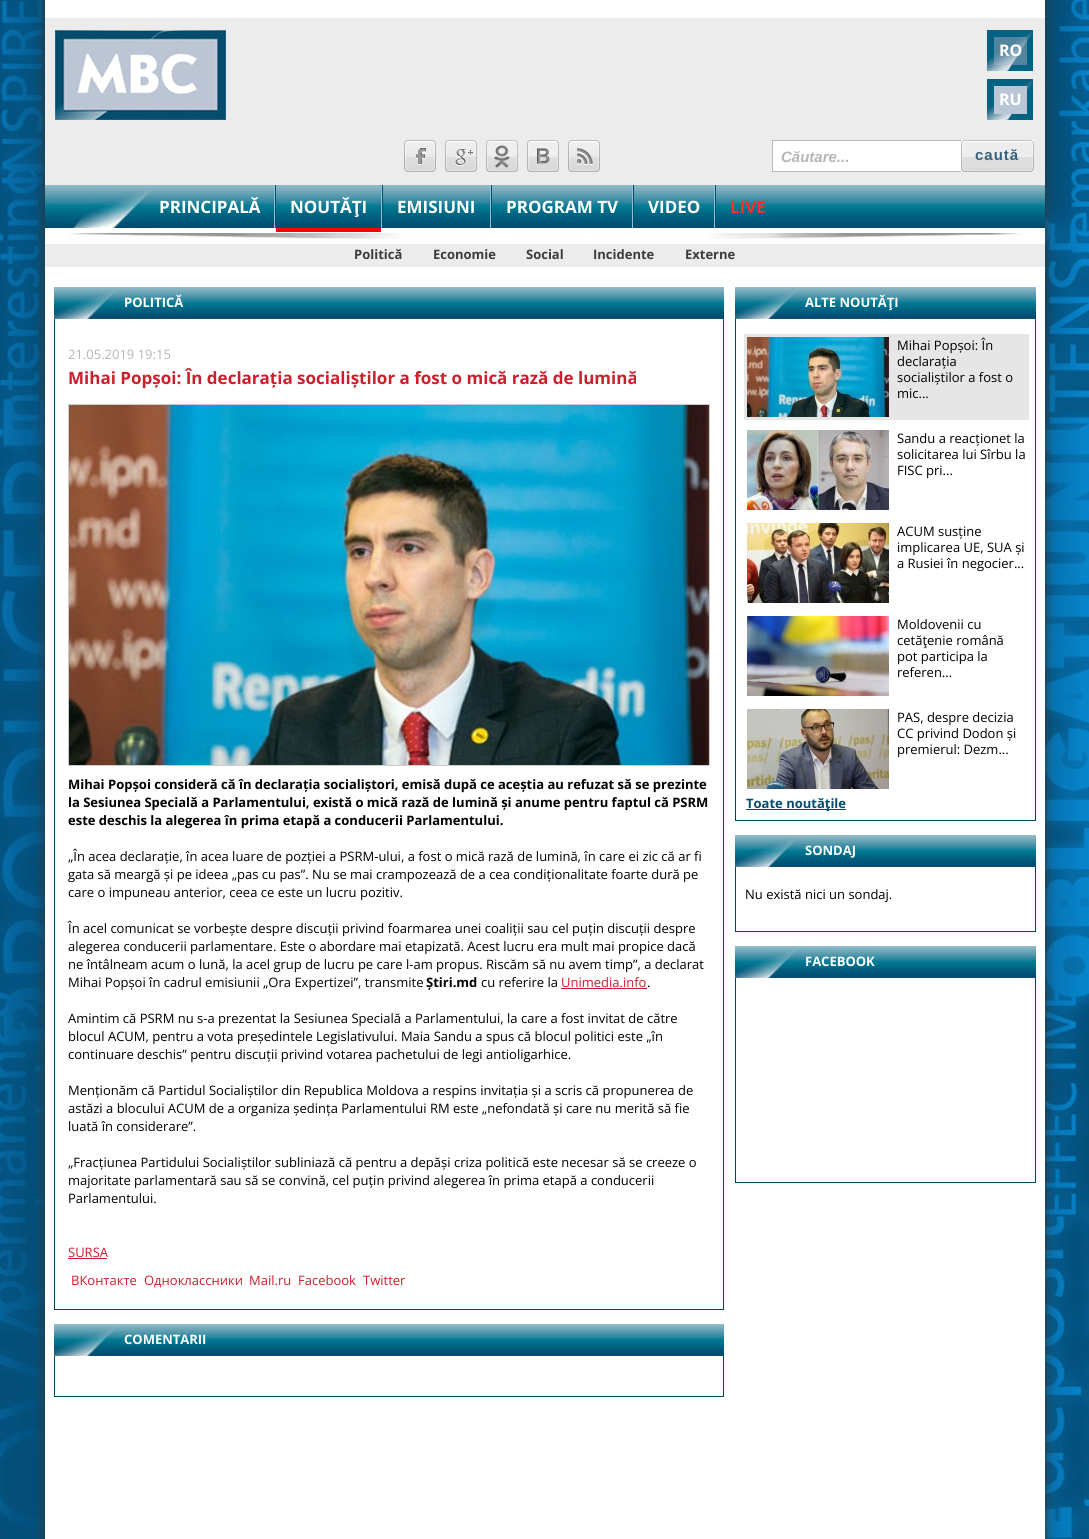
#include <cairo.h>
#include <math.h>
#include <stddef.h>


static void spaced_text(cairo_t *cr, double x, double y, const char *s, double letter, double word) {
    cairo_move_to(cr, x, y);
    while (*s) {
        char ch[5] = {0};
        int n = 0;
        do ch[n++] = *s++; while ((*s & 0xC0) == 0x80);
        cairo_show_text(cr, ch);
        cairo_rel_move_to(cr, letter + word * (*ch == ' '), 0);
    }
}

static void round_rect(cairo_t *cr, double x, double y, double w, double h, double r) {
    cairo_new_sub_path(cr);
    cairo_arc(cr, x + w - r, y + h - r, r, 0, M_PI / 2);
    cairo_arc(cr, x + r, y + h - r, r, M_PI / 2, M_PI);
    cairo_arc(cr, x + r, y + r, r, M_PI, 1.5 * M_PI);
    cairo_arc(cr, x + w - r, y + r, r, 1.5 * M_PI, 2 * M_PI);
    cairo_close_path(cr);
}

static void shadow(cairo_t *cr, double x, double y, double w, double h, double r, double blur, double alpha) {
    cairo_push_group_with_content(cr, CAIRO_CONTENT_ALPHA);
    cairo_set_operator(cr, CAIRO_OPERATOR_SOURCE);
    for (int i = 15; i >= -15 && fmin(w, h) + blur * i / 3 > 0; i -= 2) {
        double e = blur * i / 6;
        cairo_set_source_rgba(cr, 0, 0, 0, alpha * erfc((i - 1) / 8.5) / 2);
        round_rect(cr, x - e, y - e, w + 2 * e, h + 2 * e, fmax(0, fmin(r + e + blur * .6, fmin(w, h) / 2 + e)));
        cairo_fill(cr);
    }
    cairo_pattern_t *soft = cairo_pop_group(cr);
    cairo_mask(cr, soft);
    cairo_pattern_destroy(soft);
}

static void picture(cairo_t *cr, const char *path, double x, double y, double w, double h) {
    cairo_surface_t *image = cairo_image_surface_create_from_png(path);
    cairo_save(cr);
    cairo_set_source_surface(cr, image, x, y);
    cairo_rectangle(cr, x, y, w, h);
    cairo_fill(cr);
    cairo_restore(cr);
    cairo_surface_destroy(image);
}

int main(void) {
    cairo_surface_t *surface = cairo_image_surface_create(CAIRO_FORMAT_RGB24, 1089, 1539);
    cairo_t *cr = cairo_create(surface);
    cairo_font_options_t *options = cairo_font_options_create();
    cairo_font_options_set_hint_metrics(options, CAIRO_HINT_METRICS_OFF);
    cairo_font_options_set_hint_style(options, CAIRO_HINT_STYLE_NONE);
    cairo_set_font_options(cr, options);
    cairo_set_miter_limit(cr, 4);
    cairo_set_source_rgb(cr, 1, 1, 1);
    cairo_paint(cr);
    picture(cr, "img1.png", 0, 0, 1089, 1539);
    cairo_set_source_rgb(cr, 0.2, 0.2, 0.2);
    shadow(cr, 45, 0, 1000, 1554, 0, 5, 1);
    cairo_set_source_rgb(cr, 0.925, 0.925, 0.925);
    cairo_rectangle(cr, 45, 18, 1000, 167);
    cairo_fill(cr);
    cairo_set_source_rgb(cr, 1, 1, 1);
    cairo_rectangle(cr, 45, 0, 1000, 18);
    cairo_fill(cr);
    picture(cr, "img2.png", 55, 30, 171, 90);
    picture(cr, "img3.png", 987, 30, 46, 41);
    cairo_select_font_face(cr, "Open Sans", CAIRO_FONT_SLANT_NORMAL, CAIRO_FONT_WEIGHT_BOLD);
    cairo_set_font_size(cr, 16);
    cairo_move_to(cr, 999, 56);
    cairo_show_text(cr, "RO");
    picture(cr, "img4.png", 987, 79, 46, 41);
    cairo_move_to(cr, 999, 105);
    cairo_show_text(cr, "RU");
    picture(cr, "img5.png", 404, 140, 32, 32);
    picture(cr, "img6.png", 445, 140, 32, 32);
    picture(cr, "img7.png", 486, 140, 32, 32);
    picture(cr, "img8.png", 527, 140, 32, 32);
    picture(cr, "img9.png", 568, 140, 32, 32);
    cairo_rectangle(cr, 773, 141, 188, 30);
    cairo_fill(cr);
    cairo_set_source_rgb(cr, 0.722, 0.722, 0.722);
    cairo_rectangle(cr, 772, 140, 189, 1);
    cairo_fill(cr);
    cairo_rectangle(cr, 772, 171, 189, 1);
    cairo_fill(cr);
    cairo_rectangle(cr, 772, 140, 1, 32);
    cairo_fill(cr);
    cairo_select_font_face(cr, "Liberation Sans", CAIRO_FONT_SLANT_ITALIC, CAIRO_FONT_WEIGHT_BOLD);
    cairo_set_font_size(cr, 15);
    cairo_set_source_rgb(cr, 0.71, 0.71, 0.71);
    cairo_move_to(cr, 781, 162);
    cairo_show_text(cr, "Căutare...");
    picture(cr, "img10.png", 961, 140, 73, 32);
    cairo_select_font_face(cr, "Liberation Sans", CAIRO_FONT_SLANT_NORMAL, CAIRO_FONT_WEIGHT_BOLD);
    cairo_set_source_rgb(cr, 0.216, 0.384, 0.502);
    spaced_text(cr, 975, 160, "caută", 1, 0);
    cairo_set_source_rgb(cr, 1, 1, 1);
    cairo_rectangle(cr, 45, 228, 1000, 1311);
    cairo_fill(cr);
    picture(cr, "img11.png", 45, 185, 1000, 43);
    picture(cr, "img12.png", 53, 185, 106, 43);
    cairo_set_source_rgb(cr, 0.573, 0.745, 0.851);
    cairo_rectangle(cr, 274, 185, 1, 43);
    cairo_fill(cr);
    cairo_select_font_face(cr, "Open Sans", CAIRO_FONT_SLANT_NORMAL, CAIRO_FONT_WEIGHT_BOLD);
    cairo_set_font_size(cr, 17);
    cairo_set_source_rgb(cr, 1, 1, 1);
    cairo_move_to(cr, 159, 213);
    cairo_show_text(cr, "PRINCIPALĂ");
    cairo_set_source_rgb(cr, 0.573, 0.745, 0.851);
    cairo_rectangle(cr, 381, 185, 1, 43);
    cairo_fill(cr);
    cairo_set_source_rgb(cr, 0.004, 0.314, 0.431);
    cairo_rectangle(cr, 275, 185, 1, 43);
    cairo_fill(cr);
    cairo_set_source_rgb(cr, 1, 0, 0.016);
    cairo_rectangle(cr, 276, 228, 105, 4);
    cairo_fill(cr);
    cairo_set_source_rgb(cr, 1, 1, 1);
    cairo_move_to(cr, 290, 213);
    cairo_show_text(cr, "NOUTĂŢI");
    cairo_set_source_rgb(cr, 0.573, 0.745, 0.851);
    cairo_rectangle(cr, 490, 185, 1, 43);
    cairo_fill(cr);
    cairo_set_source_rgb(cr, 0.004, 0.314, 0.431);
    cairo_rectangle(cr, 382, 185, 1, 43);
    cairo_fill(cr);
    cairo_set_source_rgb(cr, 1, 1, 1);
    cairo_move_to(cr, 397, 213);
    cairo_show_text(cr, "EMISIUNI");
    cairo_set_source_rgb(cr, 0.573, 0.745, 0.851);
    cairo_rectangle(cr, 632, 185, 1, 43);
    cairo_fill(cr);
    cairo_set_source_rgb(cr, 0.004, 0.314, 0.431);
    cairo_rectangle(cr, 491, 185, 1, 43);
    cairo_fill(cr);
    cairo_set_source_rgb(cr, 1, 1, 1);
    cairo_move_to(cr, 506, 213);
    cairo_show_text(cr, "PROGRAM TV");
    cairo_set_source_rgb(cr, 0.573, 0.745, 0.851);
    cairo_rectangle(cr, 714, 185, 1, 43);
    cairo_fill(cr);
    cairo_set_source_rgb(cr, 0.004, 0.314, 0.431);
    cairo_rectangle(cr, 633, 185, 1, 43);
    cairo_fill(cr);
    cairo_set_source_rgb(cr, 1, 1, 1);
    cairo_move_to(cr, 648, 213);
    cairo_show_text(cr, "VIDEO");
    cairo_set_source_rgb(cr, 0.004, 0.314, 0.431);
    cairo_rectangle(cr, 715, 185, 1, 43);
    cairo_fill(cr);
    cairo_set_source_rgb(cr, 1, 0.176, 0.176);
    cairo_move_to(cr, 730, 213);
    cairo_show_text(cr, "LIVE");
    picture(cr, "img13.png", 69, 233, 952, 7);
    cairo_set_source_rgb(cr, 0.922, 0.922, 0.922);
    cairo_rectangle(cr, 45, 244, 1000, 23);
    cairo_fill(cr);
    cairo_set_font_size(cr, 13);
    cairo_set_source_rgb(cr, 0.235, 0.235, 0.235);
    cairo_move_to(cr, 354, 259);
    cairo_show_text(cr, "Politică");
    cairo_move_to(cr, 433, 259);
    cairo_show_text(cr, "Economie");
    cairo_move_to(cr, 526, 259);
    cairo_show_text(cr, "Social");
    cairo_move_to(cr, 593, 259);
    cairo_show_text(cr, "Incidente");
    cairo_move_to(cr, 685, 259);
    cairo_show_text(cr, "Externe");
    picture(cr, "img14.png", 54, 287, 670, 32);
    picture(cr, "img15.png", 54, 289, 63, 30);
    cairo_set_source_rgb(cr, 1, 1, 1);
    cairo_move_to(cr, 124, 307);
    cairo_show_text(cr, "POLITICĂ");
    cairo_set_source_rgb(cr, 0, 0.275, 0.388);
    cairo_rectangle(cr, 723, 319, 1, 991);
    cairo_fill(cr);
    cairo_rectangle(cr, 54, 1309, 670, 1);
    cairo_fill(cr);
    cairo_rectangle(cr, 54, 319, 1, 991);
    cairo_fill(cr);
    cairo_select_font_face(cr, "Open Sans", CAIRO_FONT_SLANT_NORMAL, CAIRO_FONT_WEIGHT_NORMAL);
    cairo_set_source_rgb(cr, 0.71, 0.71, 0.71);
    cairo_move_to(cr, 68, 359);
    cairo_show_text(cr, "21.05.2019 19:15");
    cairo_select_font_face(cr, "Open Sans", CAIRO_FONT_SLANT_NORMAL, CAIRO_FONT_WEIGHT_BOLD);
    cairo_set_font_size(cr, 17);
    cairo_set_source_rgb(cr, 0.804, 0.118, 0.169);
    cairo_move_to(cr, 68, 384);
    cairo_show_text(cr, "Mihai Popșoi: În declarația socialiștilor a fost o mică rază de lumină");
    cairo_rectangle(cr, 68.5, 404.5, 641, 361);
    cairo_set_source_rgb(cr, 0.8, 0.8, 0.8);
    cairo_set_line_width(cr, 1);
    cairo_stroke(cr);
    picture(cr, "img16.png", 69, 405, 640, 360);
    cairo_set_font_size(cr, 13);
    cairo_set_source_rgb(cr, 0, 0, 0);
    cairo_move_to(cr, 68, 789);
    cairo_show_text(cr, "Mihai Popșoi consideră că în declarația socialiștori, emisă după ce aceștia au refuzat să se prezinte");
    cairo_move_to(cr, 68, 807);
    cairo_show_text(cr, "la Sesiunea Specială a Parlamentului, există o mică rază de lumină și anume pentru faptul că PSRM");
    cairo_move_to(cr, 68, 825);
    cairo_show_text(cr, "este deschis la alegerea în prima etapă a conducerii Parlamentului.");
    cairo_select_font_face(cr, "Open Sans", CAIRO_FONT_SLANT_NORMAL, CAIRO_FONT_WEIGHT_NORMAL);
    cairo_move_to(cr, 68, 861);
    cairo_show_text(cr, "„În acea declarație, în acea luare de pozției a PSRM-ului, a fost o mică rază de lumină, în care ei zic că ar fi");
    cairo_move_to(cr, 68, 879);
    cairo_show_text(cr, "gata să meargă și pe ideea „pas cu pas”. Nu se mai crampozează de a cea condiționalitate foarte dură pe");
    cairo_move_to(cr, 68, 897);
    cairo_show_text(cr, "care o impuneau anterior, ceea ce este un lucru pozitiv.");
    cairo_move_to(cr, 68, 933);
    cairo_show_text(cr, "În acel comunicat se vorbește despre discuții privind foarmarea unei coaliții sau cel puțin discuții despre");
    cairo_move_to(cr, 68, 951);
    cairo_show_text(cr, "alegerea conducerii parlamentare. Este o abordare mai etapizată. Acest lucru era mult mai propice dacă");
    cairo_move_to(cr, 68, 969);
    cairo_show_text(cr, "ne întâlneam acum o lună, la acel grup de lucru pe care l-am propus. Riscăm să nu avem timp”, a declarat");
    cairo_move_to(cr, 68, 987);
    cairo_show_text(cr, "Mihai Popșoi în cadrul emisiunii „Ora Expertizei”, transmite");
    cairo_select_font_face(cr, "Open Sans", CAIRO_FONT_SLANT_NORMAL, CAIRO_FONT_WEIGHT_BOLD);
    cairo_move_to(cr, 426, 987);
    cairo_show_text(cr, "Știri.md");
    cairo_select_font_face(cr, "Open Sans", CAIRO_FONT_SLANT_NORMAL, CAIRO_FONT_WEIGHT_NORMAL);
    cairo_move_to(cr, 481, 987);
    cairo_show_text(cr, "cu referire la");
    cairo_set_source_rgb(cr, 0.804, 0.118, 0.169);
    cairo_move_to(cr, 561, 987);
    cairo_show_text(cr, "Unimedia.info");
    cairo_rectangle(cr, 561, 988, 86, 1);
    cairo_fill(cr);
    cairo_set_source_rgb(cr, 0, 0, 0);
    cairo_move_to(cr, 647, 987);
    cairo_show_text(cr, ".");
    cairo_move_to(cr, 68, 1023);
    cairo_show_text(cr, "Amintim că PSRM nu s-a prezentat la Sesiunea Specială a Parlamentului, la care a fost invitat de către");
    cairo_move_to(cr, 68, 1041);
    cairo_show_text(cr, "blocul ACUM, pentru a vota președintele Legislativului. Maia Sandu a spus că blocul politici este „în");
    cairo_move_to(cr, 68, 1059);
    cairo_show_text(cr, "continuare deschis” pentru discuții privind votarea pachetului de legi antioligarhice.");
    cairo_move_to(cr, 68, 1095);
    cairo_show_text(cr, "Menționăm că Partidul Socialiștilor din Republica Moldova a respins invitația și a scris că propunerea de");
    cairo_move_to(cr, 68, 1113);
    cairo_show_text(cr, "astăzi a blocului ACUM de a organiza ședința Parlamentului RM este „nefondată și care nu merită să fie");
    cairo_move_to(cr, 68, 1131);
    cairo_show_text(cr, "luată în considerare”.");
    cairo_move_to(cr, 68, 1167);
    cairo_show_text(cr, "„Fracțiunea Partidului Socialiștilor subliniază că pentru a depăși criza politică este necesar să se creeze o");
    cairo_move_to(cr, 68, 1185);
    cairo_show_text(cr, "majoritate parlamentară sau să se convină, cel puțin privind alegerea în prima etapă a conducerii");
    cairo_move_to(cr, 68, 1203);
    cairo_show_text(cr, "Parlamentului.");
    cairo_set_source_rgb(cr, 0.804, 0.118, 0.169);
    cairo_move_to(cr, 68, 1257);
    cairo_show_text(cr, "SURSA");
    cairo_rectangle(cr, 68, 1258, 39, 1);
    cairo_fill(cr);
    cairo_move_to(cr, 71, 1285);
    cairo_show_text(cr, "ВКонтакте");
    cairo_move_to(cr, 144, 1285);
    cairo_show_text(cr, "Одноклассники");
    cairo_move_to(cr, 249, 1285);
    cairo_show_text(cr, "Mail.ru");
    cairo_move_to(cr, 298, 1285);
    cairo_show_text(cr, "Facebook");
    cairo_move_to(cr, 363, 1285);
    cairo_show_text(cr, "Twitter");
    picture(cr, "img14.png", 54, 1324, 670, 32);
    picture(cr, "img15.png", 54, 1326, 63, 30);
    cairo_select_font_face(cr, "Open Sans", CAIRO_FONT_SLANT_NORMAL, CAIRO_FONT_WEIGHT_BOLD);
    cairo_set_source_rgb(cr, 1, 1, 1);
    cairo_move_to(cr, 124, 1344);
    cairo_show_text(cr, "COMENTARII");
    cairo_set_source_rgb(cr, 0, 0.275, 0.388);
    cairo_rectangle(cr, 723, 1356, 1, 41);
    cairo_fill(cr);
    cairo_rectangle(cr, 54, 1396, 670, 1);
    cairo_fill(cr);
    cairo_rectangle(cr, 54, 1356, 1, 41);
    cairo_fill(cr);
    picture(cr, "img17.png", 735, 287, 301, 32);
    picture(cr, "img18.png", 735, 289, 63, 30);
    cairo_set_source_rgb(cr, 1, 1, 1);
    cairo_move_to(cr, 805, 307);
    cairo_show_text(cr, "ALTE NOUTĂŢI");
    cairo_set_source_rgb(cr, 0, 0.275, 0.388);
    cairo_rectangle(cr, 1035, 319, 1, 502);
    cairo_fill(cr);
    cairo_rectangle(cr, 735, 820, 301, 1);
    cairo_fill(cr);
    cairo_rectangle(cr, 735, 319, 1, 502);
    cairo_fill(cr);
    cairo_set_source_rgb(cr, 0.902, 0.902, 0.902);
    cairo_rectangle(cr, 744, 334, 285, 86);
    cairo_fill(cr);
    picture(cr, "img19.png", 747, 337, 142, 80);
    cairo_select_font_face(cr, "Open Sans", CAIRO_FONT_SLANT_NORMAL, CAIRO_FONT_WEIGHT_NORMAL);
    cairo_set_source_rgb(cr, 0, 0, 0);
    cairo_move_to(cr, 897, 350);
    cairo_show_text(cr, "Mihai Popșoi: În");
    cairo_move_to(cr, 897, 366);
    cairo_show_text(cr, "declarația");
    cairo_move_to(cr, 897, 382);
    cairo_show_text(cr, "socialiștilor a fost o");
    cairo_move_to(cr, 897, 398);
    cairo_show_text(cr, "mic...");
    picture(cr, "img20.png", 747, 430, 142, 80);
    cairo_move_to(cr, 897, 443);
    cairo_show_text(cr, "Sandu a reacționet la");
    cairo_move_to(cr, 897, 459);
    cairo_show_text(cr, "solicitarea lui Sîrbu la");
    cairo_move_to(cr, 897, 475);
    cairo_show_text(cr, "FISC pri...");
    picture(cr, "img21.png", 747, 523, 142, 80);
    cairo_move_to(cr, 897, 536);
    cairo_show_text(cr, "ACUM susține");
    cairo_move_to(cr, 897, 552);
    cairo_show_text(cr, "implicarea UE, SUA și");
    cairo_move_to(cr, 897, 568);
    cairo_show_text(cr, "a Rusiei în negocier...");
    picture(cr, "img22.png", 747, 616, 142, 80);
    cairo_move_to(cr, 897, 629);
    cairo_show_text(cr, "Moldovenii cu");
    cairo_move_to(cr, 897, 645);
    cairo_show_text(cr, "cetăţenie română");
    cairo_move_to(cr, 897, 661);
    cairo_show_text(cr, "pot participa la");
    cairo_move_to(cr, 897, 677);
    cairo_show_text(cr, "referen...");
    picture(cr, "img23.png", 747, 709, 142, 80);
    cairo_move_to(cr, 897, 722);
    cairo_show_text(cr, "PAS, despre decizia");
    cairo_move_to(cr, 897, 738);
    cairo_show_text(cr, "CC privind Dodon și");
    cairo_move_to(cr, 897, 754);
    cairo_show_text(cr, "premierul: Dezm...");
    cairo_set_source_rgb(cr, 0.02, 0.302, 0.431);
    cairo_rectangle(cr, 746, 809, 100, 1);
    cairo_fill(cr);
    cairo_select_font_face(cr, "Open Sans", CAIRO_FONT_SLANT_NORMAL, CAIRO_FONT_WEIGHT_BOLD);
    cairo_move_to(cr, 746, 808);
    cairo_show_text(cr, "Toate noutăţile");
    picture(cr, "img17.png", 735, 835, 301, 32);
    picture(cr, "img18.png", 735, 837, 63, 30);
    cairo_set_source_rgb(cr, 1, 1, 1);
    cairo_move_to(cr, 805, 855);
    cairo_show_text(cr, "SONDAJ");
    cairo_set_source_rgb(cr, 0, 0.275, 0.388);
    cairo_rectangle(cr, 1035, 867, 1, 65);
    cairo_fill(cr);
    cairo_rectangle(cr, 735, 931, 301, 1);
    cairo_fill(cr);
    cairo_rectangle(cr, 735, 867, 1, 65);
    cairo_fill(cr);
    cairo_select_font_face(cr, "Open Sans", CAIRO_FONT_SLANT_NORMAL, CAIRO_FONT_WEIGHT_NORMAL);
    cairo_set_source_rgb(cr, 0, 0, 0);
    cairo_move_to(cr, 745, 899);
    cairo_show_text(cr, "Nu există nici un sondaj.");
    picture(cr, "img17.png", 735, 946, 301, 32);
    picture(cr, "img18.png", 735, 948, 63, 30);
    cairo_select_font_face(cr, "Open Sans", CAIRO_FONT_SLANT_NORMAL, CAIRO_FONT_WEIGHT_BOLD);
    cairo_set_source_rgb(cr, 1, 1, 1);
    cairo_move_to(cr, 805, 966);
    cairo_show_text(cr, "FACEBOOK");
    cairo_set_source_rgb(cr, 0, 0.275, 0.388);
    cairo_rectangle(cr, 1035, 978, 1, 205);
    cairo_fill(cr);
    cairo_rectangle(cr, 735, 1182, 301, 1);
    cairo_fill(cr);
    cairo_rectangle(cr, 735, 978, 1, 205);
    cairo_fill(cr);
    cairo_surface_write_to_png(surface, "page.png");
    cairo_font_options_destroy(options);
    cairo_destroy(cr);
    cairo_surface_destroy(surface);
    return 0;
}
